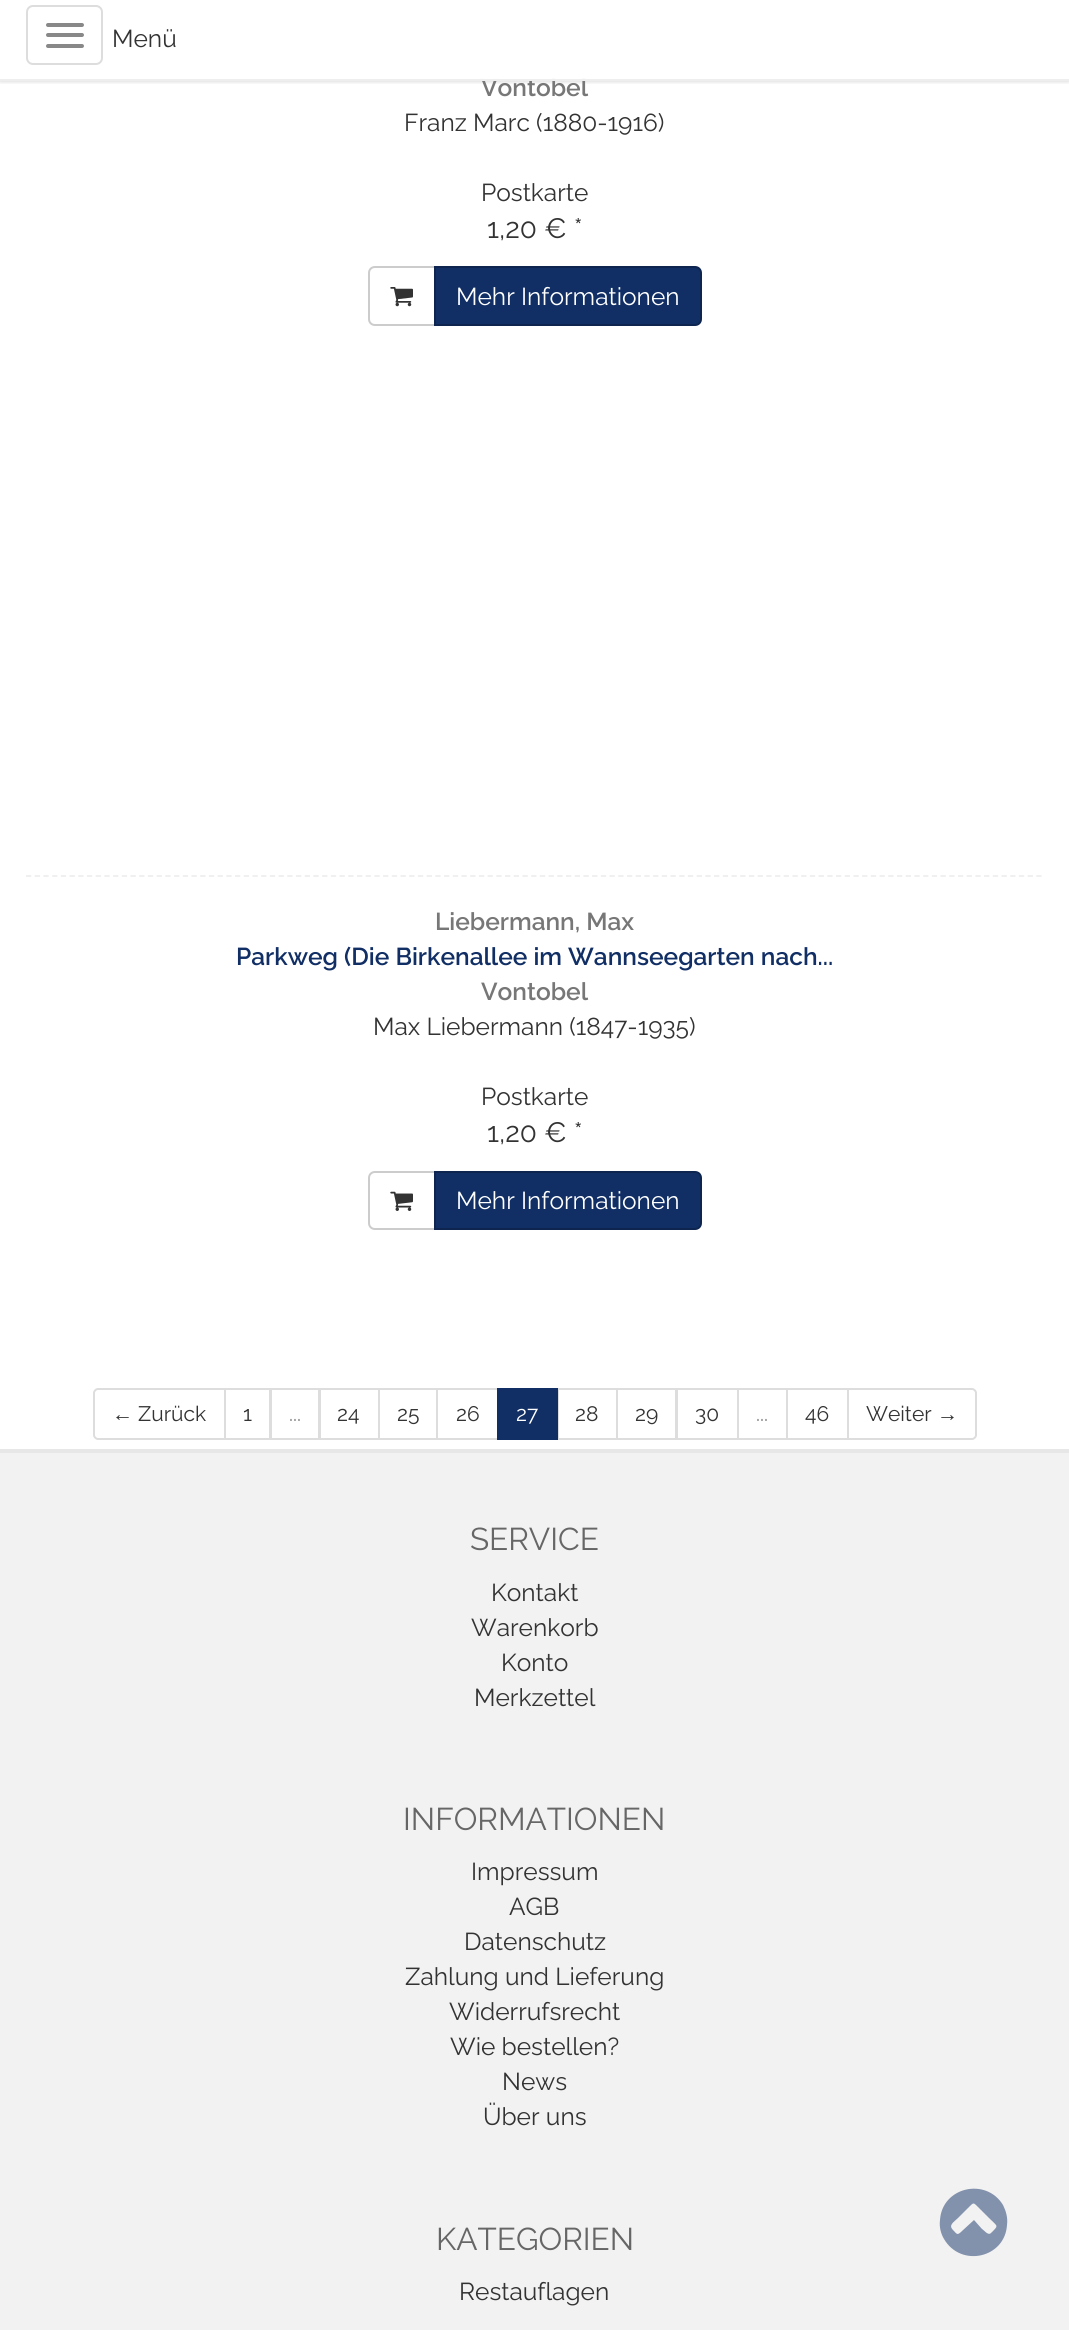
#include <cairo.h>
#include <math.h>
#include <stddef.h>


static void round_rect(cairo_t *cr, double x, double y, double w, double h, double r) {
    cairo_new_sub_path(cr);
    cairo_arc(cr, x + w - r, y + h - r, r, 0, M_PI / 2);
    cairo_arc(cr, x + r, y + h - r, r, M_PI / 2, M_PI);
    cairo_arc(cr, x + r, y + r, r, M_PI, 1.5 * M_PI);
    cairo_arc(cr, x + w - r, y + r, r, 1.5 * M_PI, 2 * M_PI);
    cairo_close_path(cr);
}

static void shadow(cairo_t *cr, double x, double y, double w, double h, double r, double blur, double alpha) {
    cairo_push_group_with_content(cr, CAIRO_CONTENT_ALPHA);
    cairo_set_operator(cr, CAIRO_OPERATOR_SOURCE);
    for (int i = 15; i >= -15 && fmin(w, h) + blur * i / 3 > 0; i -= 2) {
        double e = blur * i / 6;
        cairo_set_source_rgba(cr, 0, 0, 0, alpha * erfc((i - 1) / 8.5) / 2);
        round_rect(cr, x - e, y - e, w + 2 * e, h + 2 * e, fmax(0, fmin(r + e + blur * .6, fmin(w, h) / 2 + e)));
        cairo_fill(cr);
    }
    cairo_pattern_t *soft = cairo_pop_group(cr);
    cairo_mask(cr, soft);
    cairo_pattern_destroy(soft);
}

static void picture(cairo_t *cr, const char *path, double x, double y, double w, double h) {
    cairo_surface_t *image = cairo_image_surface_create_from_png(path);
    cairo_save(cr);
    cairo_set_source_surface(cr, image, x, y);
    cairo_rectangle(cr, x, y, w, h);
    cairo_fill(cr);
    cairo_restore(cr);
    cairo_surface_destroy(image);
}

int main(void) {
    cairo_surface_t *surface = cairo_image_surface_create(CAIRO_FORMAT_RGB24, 1069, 2330);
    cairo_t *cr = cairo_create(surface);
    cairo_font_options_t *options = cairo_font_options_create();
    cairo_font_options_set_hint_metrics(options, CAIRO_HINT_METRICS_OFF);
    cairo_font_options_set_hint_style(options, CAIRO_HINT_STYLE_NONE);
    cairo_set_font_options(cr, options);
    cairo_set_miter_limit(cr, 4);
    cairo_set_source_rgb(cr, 1, 1, 1);
    cairo_paint(cr);
    cairo_save(cr);
    cairo_rectangle(cr, 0, 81, 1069, 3);
    cairo_clip(cr);
    cairo_set_source_rgb(cr, 0, 0, 0);
    shadow(cr, 0, 0, 1069, 81, 0, 2.5, 0.2);
    cairo_restore(cr);
    cairo_select_font_face(cr, "Raleway SemiBold", CAIRO_FONT_SLANT_NORMAL, CAIRO_FONT_WEIGHT_NORMAL);
    cairo_set_font_size(cr, 24.5);
    cairo_set_source_rgb(cr, 0.467, 0.467, 0.467);
    cairo_move_to(cr, 481, 96);
    cairo_show_text(cr, "Vontobel");
    cairo_set_source_rgba(cr, 1, 1, 1, 0.95);
    cairo_rectangle(cr, 481, 78, 105, 1);
    cairo_fill(cr);
    cairo_set_source_rgb(cr, 0.933, 0.933, 0.933);
    cairo_rectangle(cr, 0, 79, 1069, 2);
    cairo_fill(cr);
    round_rect(cr, 27, 6, 75, 58, 6);
    cairo_set_source_rgb(cr, 0.867, 0.867, 0.867);
    cairo_stroke(cr);
    cairo_set_source_rgb(cr, 0.533, 0.533, 0.533);
    round_rect(cr, 46, 23, 38, 4, 2);
    cairo_fill(cr);
    round_rect(cr, 46, 33, 38, 4, 2);
    cairo_fill(cr);
    round_rect(cr, 46, 44, 38, 4, 2);
    cairo_fill(cr);
    cairo_select_font_face(cr, "Raleway", CAIRO_FONT_SLANT_NORMAL, CAIRO_FONT_WEIGHT_NORMAL);
    cairo_set_source_rgb(cr, 0.2, 0.2, 0.2);
    cairo_move_to(cr, 112, 47);
    cairo_show_text(cr, "Menü");
    cairo_move_to(cr, 404, 131);
    cairo_show_text(cr, "Franz Marc (1880-1916)");
    cairo_move_to(cr, 481, 201);
    cairo_show_text(cr, "Postkarte");
    cairo_set_font_size(cr, 28);
    cairo_move_to(cr, 487, 238);
    cairo_show_text(cr, "1,20 € *");
    cairo_new_path(cr);
    cairo_move_to(cr, 375, 267);
    cairo_line_to(cr, 435, 267);
    cairo_line_to(cr, 435, 325);
    cairo_line_to(cr, 375, 325);
    cairo_curve_to(cr, 371.5, 325, 369, 322.5, 369, 319);
    cairo_line_to(cr, 369, 273);
    cairo_curve_to(cr, 369, 269.5, 371.5, 267, 375, 267);
    cairo_close_path(cr);
    cairo_set_source_rgb(cr, 0.8, 0.8, 0.8);
    cairo_stroke(cr);
    picture(cr, "img1.png", 390, 287, 23, 20);
    cairo_set_source_rgb(cr, 0.067, 0.184, 0.396);
    cairo_new_path(cr);
    cairo_move_to(cr, 435, 267);
    cairo_line_to(cr, 695, 267);
    cairo_curve_to(cr, 698.5, 267, 701, 269.5, 701, 273);
    cairo_line_to(cr, 701, 319);
    cairo_curve_to(cr, 701, 322.5, 698.5, 325, 695, 325);
    cairo_line_to(cr, 435, 325);
    cairo_close_path(cr);
    cairo_fill_preserve(cr);
    cairo_set_source_rgb(cr, 0.051, 0.145, 0.31);
    cairo_stroke(cr);
    cairo_set_font_size(cr, 24.5);
    cairo_set_source_rgb(cr, 1, 1, 1);
    cairo_move_to(cr, 456, 305);
    cairo_show_text(cr, "Mehr Informationen");
    cairo_new_path(cr);
    cairo_move_to(cr, 26, 876);
    cairo_line_to(cr, 1043, 876);
    cairo_set_source_rgb(cr, 0.933, 0.933, 0.933);
    cairo_set_line_width(cr, 1.8);
    cairo_set_dash(cr, (double[]){5.25, 3.46}, 2, 0);
    cairo_stroke(cr);
    cairo_select_font_face(cr, "Raleway SemiBold", CAIRO_FONT_SLANT_NORMAL, CAIRO_FONT_WEIGHT_NORMAL);
    cairo_set_source_rgb(cr, 0.467, 0.467, 0.467);
    cairo_move_to(cr, 435, 930);
    cairo_show_text(cr, "Liebermann, Max");
    cairo_set_source_rgb(cr, 0.067, 0.184, 0.396);
    cairo_move_to(cr, 236, 965);
    cairo_show_text(cr, "Parkweg (Die Birkenallee im Wannseegarten nach...");
    cairo_set_source_rgb(cr, 0.467, 0.467, 0.467);
    cairo_move_to(cr, 481, 1000);
    cairo_show_text(cr, "Vontobel");
    cairo_select_font_face(cr, "Raleway", CAIRO_FONT_SLANT_NORMAL, CAIRO_FONT_WEIGHT_NORMAL);
    cairo_set_source_rgb(cr, 0.2, 0.2, 0.2);
    cairo_move_to(cr, 373, 1035);
    cairo_show_text(cr, "Max Liebermann (1847-1935)");
    cairo_move_to(cr, 481, 1105);
    cairo_show_text(cr, "Postkarte");
    cairo_set_font_size(cr, 28);
    cairo_move_to(cr, 487, 1142);
    cairo_show_text(cr, "1,20 € *");
    cairo_new_path(cr);
    cairo_move_to(cr, 375, 1172);
    cairo_line_to(cr, 435, 1172);
    cairo_line_to(cr, 435, 1229);
    cairo_line_to(cr, 375, 1229);
    cairo_curve_to(cr, 371.5, 1229, 369, 1226.5, 369, 1223);
    cairo_line_to(cr, 369, 1178);
    cairo_curve_to(cr, 369, 1174.5, 371.5, 1172, 375, 1172);
    cairo_close_path(cr);
    cairo_set_source_rgb(cr, 0.8, 0.8, 0.8);
    cairo_set_line_width(cr, 2);
    cairo_set_dash(cr, NULL, 0, 0);
    cairo_stroke(cr);
    picture(cr, "img2.png", 390, 1191, 23, 20);
    cairo_set_source_rgb(cr, 0.067, 0.184, 0.396);
    cairo_new_path(cr);
    cairo_move_to(cr, 435, 1172);
    cairo_line_to(cr, 695, 1172);
    cairo_curve_to(cr, 698.5, 1172, 701, 1174.5, 701, 1178);
    cairo_line_to(cr, 701, 1223);
    cairo_curve_to(cr, 701, 1226.5, 698.5, 1229, 695, 1229);
    cairo_line_to(cr, 435, 1229);
    cairo_close_path(cr);
    cairo_fill_preserve(cr);
    cairo_set_source_rgb(cr, 0.051, 0.145, 0.31);
    cairo_stroke(cr);
    cairo_set_font_size(cr, 24.5);
    cairo_set_source_rgb(cr, 1, 1, 1);
    cairo_move_to(cr, 456, 1209);
    cairo_show_text(cr, "Mehr Informationen");
    cairo_new_path(cr);
    cairo_move_to(cr, 98, 1389);
    cairo_line_to(cr, 225, 1389);
    cairo_line_to(cr, 225, 1439);
    cairo_line_to(cr, 98, 1439);
    cairo_curve_to(cr, 96, 1439, 94, 1437, 94, 1435);
    cairo_line_to(cr, 94, 1393);
    cairo_curve_to(cr, 94, 1391, 96, 1389, 98, 1389);
    cairo_close_path(cr);
    cairo_set_source_rgb(cr, 0.867, 0.867, 0.867);
    cairo_stroke(cr);
    cairo_select_font_face(cr, "Liberation Sans", CAIRO_FONT_SLANT_NORMAL, CAIRO_FONT_WEIGHT_NORMAL);
    cairo_set_font_size(cr, 21);
    cairo_set_source_rgb(cr, 0.2, 0.2, 0.2);
    cairo_move_to(cr, 112, 1421);
    cairo_show_text(cr, "←");
    cairo_select_font_face(cr, "Raleway", CAIRO_FONT_SLANT_NORMAL, CAIRO_FONT_WEIGHT_NORMAL);
    cairo_move_to(cr, 138, 1421);
    cairo_show_text(cr, "Zurück");
    cairo_rectangle(cr, 225, 1389, 45, 50);
    cairo_set_source_rgb(cr, 0.867, 0.867, 0.867);
    cairo_stroke(cr);
    cairo_set_source_rgb(cr, 0.2, 0.2, 0.2);
    cairo_move_to(cr, 243, 1421);
    cairo_show_text(cr, "1");
    cairo_rectangle(cr, 271, 1389, 48, 50);
    cairo_set_source_rgb(cr, 0.867, 0.867, 0.867);
    cairo_stroke(cr);
    cairo_set_source_rgb(cr, 0.467, 0.467, 0.467);
    cairo_move_to(cr, 289, 1421);
    cairo_show_text(cr, "...");
    cairo_rectangle(cr, 320, 1389, 59, 50);
    cairo_set_source_rgb(cr, 0.867, 0.867, 0.867);
    cairo_stroke(cr);
    cairo_set_source_rgb(cr, 0.2, 0.2, 0.2);
    cairo_move_to(cr, 337, 1421);
    cairo_show_text(cr, "24");
    cairo_rectangle(cr, 379, 1389, 58, 50);
    cairo_set_source_rgb(cr, 0.867, 0.867, 0.867);
    cairo_stroke(cr);
    cairo_set_source_rgb(cr, 0.2, 0.2, 0.2);
    cairo_move_to(cr, 397, 1421);
    cairo_show_text(cr, "25");
    cairo_rectangle(cr, 437, 1389, 61, 50);
    cairo_set_source_rgb(cr, 0.867, 0.867, 0.867);
    cairo_stroke(cr);
    cairo_set_source_rgb(cr, 0.2, 0.2, 0.2);
    cairo_move_to(cr, 456, 1421);
    cairo_show_text(cr, "26");
    cairo_rectangle(cr, 558, 1389, 59, 50);
    cairo_set_source_rgb(cr, 0.867, 0.867, 0.867);
    cairo_stroke(cr);
    cairo_set_source_rgb(cr, 0.067, 0.184, 0.396);
    cairo_rectangle(cr, 497, 1388, 61, 52);
    cairo_fill(cr);
    cairo_set_source_rgb(cr, 1, 1, 1);
    cairo_move_to(cr, 516, 1421);
    cairo_show_text(cr, "27");
    cairo_set_source_rgb(cr, 0.2, 0.2, 0.2);
    cairo_move_to(cr, 575, 1421);
    cairo_show_text(cr, "28");
    cairo_rectangle(cr, 617, 1389, 59, 50);
    cairo_set_source_rgb(cr, 0.867, 0.867, 0.867);
    cairo_stroke(cr);
    cairo_set_source_rgb(cr, 0.2, 0.2, 0.2);
    cairo_move_to(cr, 635, 1421);
    cairo_show_text(cr, "29");
    cairo_rectangle(cr, 677, 1389, 61, 50);
    cairo_set_source_rgb(cr, 0.867, 0.867, 0.867);
    cairo_stroke(cr);
    cairo_set_source_rgb(cr, 0.2, 0.2, 0.2);
    cairo_move_to(cr, 695, 1421);
    cairo_show_text(cr, "30");
    cairo_rectangle(cr, 738, 1389, 49, 50);
    cairo_set_source_rgb(cr, 0.867, 0.867, 0.867);
    cairo_stroke(cr);
    cairo_set_source_rgb(cr, 0.467, 0.467, 0.467);
    cairo_move_to(cr, 756, 1421);
    cairo_show_text(cr, "...");
    cairo_rectangle(cr, 787, 1389, 61, 50);
    cairo_set_source_rgb(cr, 0.867, 0.867, 0.867);
    cairo_stroke(cr);
    cairo_set_source_rgb(cr, 0.2, 0.2, 0.2);
    cairo_move_to(cr, 805, 1421);
    cairo_show_text(cr, "46");
    cairo_set_source_rgb(cr, 1, 1, 1);
    cairo_new_path(cr);
    cairo_move_to(cr, 848, 1389);
    cairo_line_to(cr, 972, 1389);
    cairo_curve_to(cr, 974, 1389, 976, 1391, 976, 1393);
    cairo_line_to(cr, 976, 1435);
    cairo_curve_to(cr, 976, 1437, 974, 1439, 972, 1439);
    cairo_line_to(cr, 848, 1439);
    cairo_close_path(cr);
    cairo_fill_preserve(cr);
    cairo_set_source_rgb(cr, 0.867, 0.867, 0.867);
    cairo_stroke(cr);
    cairo_set_source_rgb(cr, 0.2, 0.2, 0.2);
    cairo_move_to(cr, 866, 1421);
    cairo_show_text(cr, "Weiter");
    cairo_select_font_face(cr, "Liberation Sans", CAIRO_FONT_SLANT_NORMAL, CAIRO_FONT_WEIGHT_NORMAL);
    cairo_move_to(cr, 937, 1421);
    cairo_show_text(cr, "→");
    cairo_set_source_rgb(cr, 0.949, 0.949, 0.949);
    cairo_rectangle(cr, 0, 1453, 1069, 877);
    cairo_fill(cr);
    cairo_set_source_rgb(cr, 0.906, 0.906, 0.906);
    cairo_rectangle(cr, 0, 1449, 1069, 4);
    cairo_fill(cr);
    cairo_select_font_face(cr, "Raleway", CAIRO_FONT_SLANT_NORMAL, CAIRO_FONT_WEIGHT_NORMAL);
    cairo_set_font_size(cr, 31.5);
    cairo_set_source_rgb(cr, 0.4, 0.4, 0.4);
    cairo_move_to(cr, 470, 1550);
    cairo_show_text(cr, "SERVICE");
    cairo_set_font_size(cr, 24.5);
    cairo_set_source_rgb(cr, 0.2, 0.2, 0.2);
    cairo_move_to(cr, 491, 1601);
    cairo_show_text(cr, "Kontakt");
    cairo_move_to(cr, 471, 1636);
    cairo_show_text(cr, "Warenkorb");
    cairo_move_to(cr, 501, 1671);
    cairo_show_text(cr, "Konto");
    cairo_move_to(cr, 474, 1706);
    cairo_show_text(cr, "Merkzettel");
    cairo_set_font_size(cr, 31.5);
    cairo_set_source_rgb(cr, 0.4, 0.4, 0.4);
    cairo_move_to(cr, 403, 1830);
    cairo_show_text(cr, "INFORMATIONEN");
    cairo_set_font_size(cr, 24.5);
    cairo_set_source_rgb(cr, 0.2, 0.2, 0.2);
    cairo_move_to(cr, 471, 1880);
    cairo_show_text(cr, "Impressum");
    cairo_move_to(cr, 509, 1915);
    cairo_show_text(cr, "AGB");
    cairo_move_to(cr, 464, 1950);
    cairo_show_text(cr, "Datenschutz");
    cairo_move_to(cr, 405, 1985);
    cairo_show_text(cr, "Zahlung und Lieferung");
    cairo_move_to(cr, 449, 2020);
    cairo_show_text(cr, "Widerrufsrecht");
    cairo_move_to(cr, 450, 2055);
    cairo_show_text(cr, "Wie bestellen?");
    cairo_move_to(cr, 502, 2090);
    cairo_show_text(cr, "News");
    cairo_move_to(cr, 483, 2125);
    cairo_show_text(cr, "Über uns");
    cairo_set_font_size(cr, 31.5);
    cairo_set_source_rgb(cr, 0.4, 0.4, 0.4);
    cairo_move_to(cr, 436, 2250);
    cairo_show_text(cr, "KATEGORIEN");
    cairo_set_font_size(cr, 24.5);
    cairo_set_source_rgb(cr, 0.2, 0.2, 0.2);
    cairo_move_to(cr, 459, 2300);
    cairo_show_text(cr, "Restauflagen");
    cairo_set_source_rgb(cr, 0.51, 0.569, 0.675);
    cairo_new_path(cr);
    cairo_move_to(cr, 991, 2233);
    cairo_curve_to(cr, 999, 2225, 998, 2227, 989, 2218);
    cairo_line_to(cr, 979, 2208);
    cairo_curve_to(cr, 973, 2202, 974, 2202, 968, 2208);
    cairo_line_to(cr, 958, 2218);
    cairo_curve_to(cr, 954, 2222, 948, 2225, 953, 2230);
    cairo_curve_to(cr, 957, 2234, 957, 2236, 962, 2231);
    cairo_line_to(cr, 974, 2220);
    cairo_line_to(cr, 982, 2229);
    cairo_curve_to(cr, 984, 2230, 988, 2236, 991, 2233);
    cairo_close_path(cr);
    cairo_move_to(cr, 1003, 2205);
    cairo_curve_to(cr, 1006, 2211, 1008, 2218, 1007, 2225);
    cairo_curve_to(cr, 1005, 2258, 961, 2268, 944, 2239);
    cairo_curve_to(cr, 941, 2234, 939, 2227, 940, 2220);
    cairo_curve_to(cr, 942, 2187, 986, 2177, 1003, 2205);
    cairo_close_path(cr);
    cairo_fill(cr);
    cairo_surface_write_to_png(surface, "page.png");
    cairo_font_options_destroy(options);
    cairo_destroy(cr);
    cairo_surface_destroy(surface);
    return 0;
}
